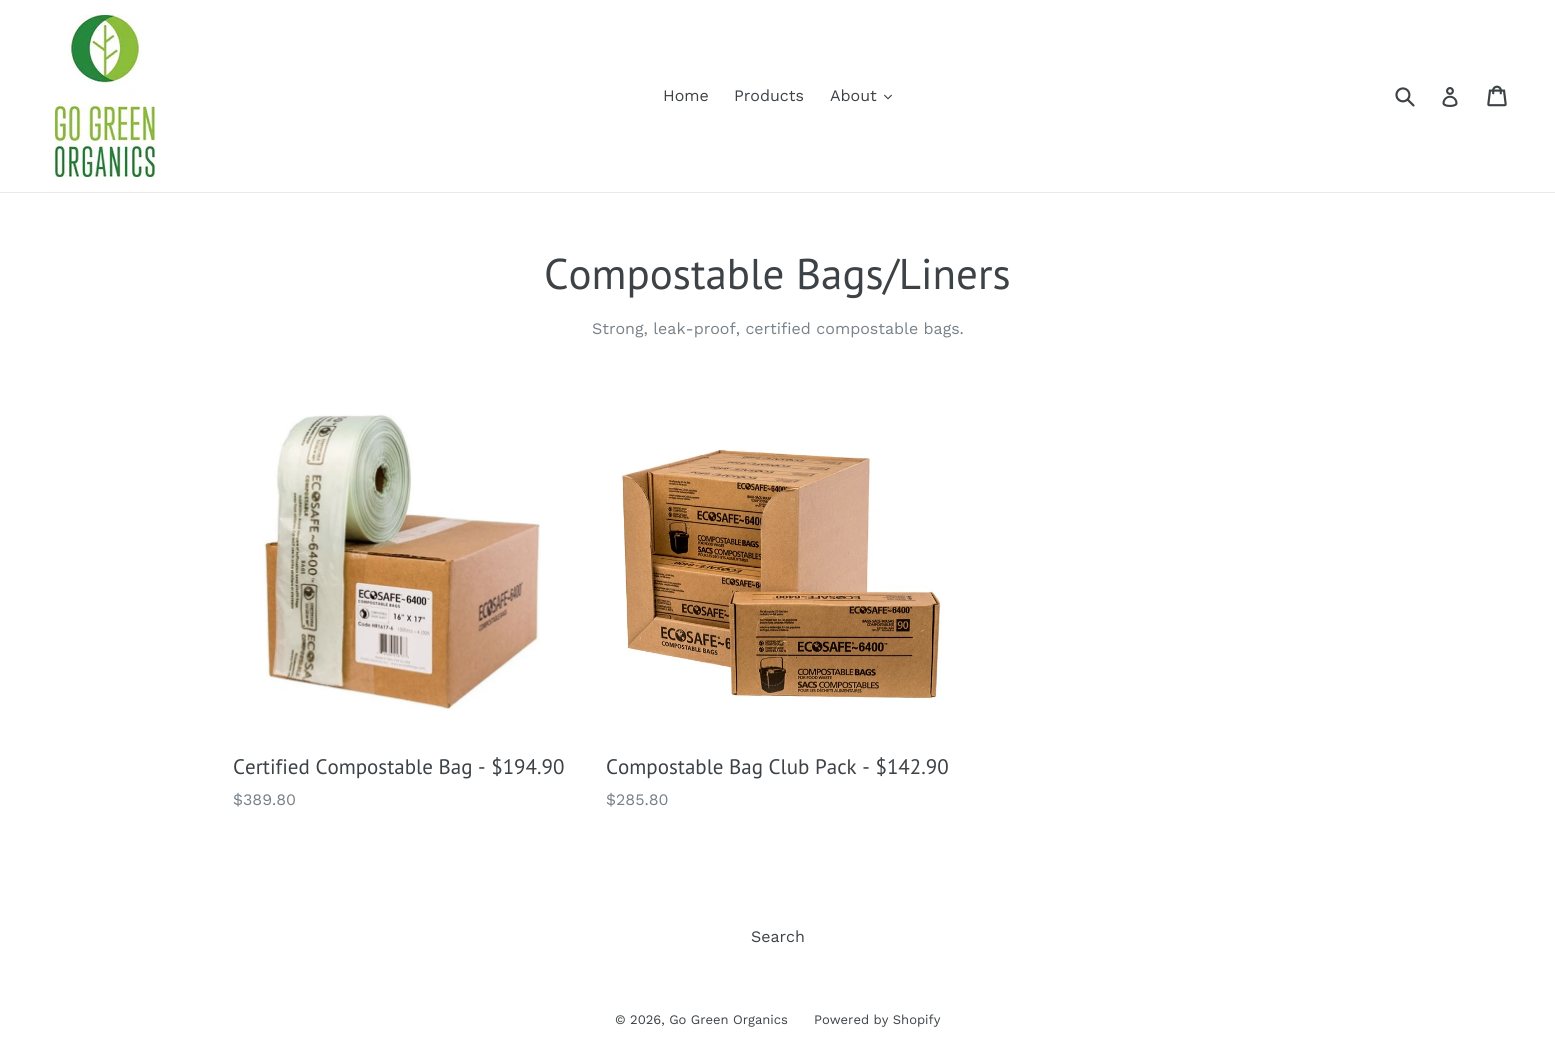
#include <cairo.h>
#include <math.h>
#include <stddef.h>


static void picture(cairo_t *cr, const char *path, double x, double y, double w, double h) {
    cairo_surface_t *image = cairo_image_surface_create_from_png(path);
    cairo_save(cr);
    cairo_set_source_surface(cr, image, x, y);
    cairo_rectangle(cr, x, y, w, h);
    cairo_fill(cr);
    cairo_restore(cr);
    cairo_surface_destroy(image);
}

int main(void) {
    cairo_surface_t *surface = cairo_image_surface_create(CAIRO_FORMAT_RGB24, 1555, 1052);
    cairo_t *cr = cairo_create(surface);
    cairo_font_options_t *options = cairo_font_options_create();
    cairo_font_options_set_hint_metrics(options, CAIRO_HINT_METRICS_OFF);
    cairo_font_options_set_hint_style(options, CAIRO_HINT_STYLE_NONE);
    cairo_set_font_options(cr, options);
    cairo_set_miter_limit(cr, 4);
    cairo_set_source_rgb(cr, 1, 1, 1);
    cairo_paint(cr);
    cairo_set_source_rgb(cr, 0.91, 0.914, 0.922);
    cairo_rectangle(cr, 0, 192, 1555, 1);
    cairo_fill(cr);
    picture(cr, "img1.png", 55, 15, 100, 162);
    cairo_select_font_face(cr, "Work Sans", CAIRO_FONT_SLANT_NORMAL, CAIRO_FONT_WEIGHT_NORMAL);
    cairo_set_font_size(cr, 16);
    cairo_set_source_rgb(cr, 0.239, 0.259, 0.275);
    cairo_move_to(cr, 663, 101);
    cairo_show_text(cr, "Home");
    cairo_move_to(cr, 734, 101);
    cairo_show_text(cr, "Products");
    cairo_move_to(cr, 830, 101);
    cairo_show_text(cr, "About");
    picture(cr, "img2.png", 884, 94, 8, 6);
    picture(cr, "img3.png", 1395, 87, 20, 20);
    picture(cr, "img4.png", 1442, 87, 16, 20);
    picture(cr, "img5.png", 1487, 85, 20, 22);
    cairo_select_font_face(cr, "PT Sans", CAIRO_FONT_SLANT_NORMAL, CAIRO_FONT_WEIGHT_NORMAL);
    cairo_set_font_size(cr, 43);
    cairo_move_to(cr, 544, 289);
    cairo_show_text(cr, "Compostable Bags/Liners");
    cairo_select_font_face(cr, "Work Sans", CAIRO_FONT_SLANT_NORMAL, CAIRO_FONT_WEIGHT_NORMAL);
    cairo_set_font_size(cr, 16);
    cairo_set_source_rgb(cr, 0.471, 0.506, 0.533);
    cairo_move_to(cr, 592, 334);
    cairo_show_text(cr, "Strong, leak-proof, certified compostable bags.");
    picture(cr, "img6.png", 263, 414, 278, 296);
    cairo_select_font_face(cr, "PT Sans", CAIRO_FONT_SLANT_NORMAL, CAIRO_FONT_WEIGHT_NORMAL);
    cairo_set_font_size(cr, 21);
    cairo_set_source_rgb(cr, 0.239, 0.259, 0.275);
    cairo_move_to(cr, 233, 774);
    cairo_show_text(cr, "Certified Compostable Bag - $194.90");
    cairo_select_font_face(cr, "Work Sans", CAIRO_FONT_SLANT_NORMAL, CAIRO_FONT_WEIGHT_NORMAL);
    cairo_set_font_size(cr, 16);
    cairo_set_source_rgb(cr, 0.471, 0.506, 0.533);
    cairo_move_to(cr, 233, 805);
    cairo_show_text(cr, "$389.80");
    picture(cr, "img7.png", 621, 449, 321, 251);
    cairo_select_font_face(cr, "PT Sans", CAIRO_FONT_SLANT_NORMAL, CAIRO_FONT_WEIGHT_NORMAL);
    cairo_set_font_size(cr, 21);
    cairo_set_source_rgb(cr, 0.239, 0.259, 0.275);
    cairo_move_to(cr, 606, 774);
    cairo_show_text(cr, "Compostable Bag Club Pack - $142.90");
    cairo_select_font_face(cr, "Work Sans", CAIRO_FONT_SLANT_NORMAL, CAIRO_FONT_WEIGHT_NORMAL);
    cairo_set_font_size(cr, 16);
    cairo_set_source_rgb(cr, 0.471, 0.506, 0.533);
    cairo_move_to(cr, 606, 805);
    cairo_show_text(cr, "$285.80");
    cairo_set_source_rgb(cr, 0.239, 0.259, 0.275);
    cairo_move_to(cr, 751, 942);
    cairo_show_text(cr, "Search");
    cairo_set_font_size(cr, 13);
    cairo_move_to(cr, 615, 1024);
    cairo_show_text(cr, "© 2026, Go Green Organics");
    cairo_move_to(cr, 814, 1024);
    cairo_show_text(cr, "Powered by Shopify");
    cairo_surface_write_to_png(surface, "page.png");
    cairo_font_options_destroy(options);
    cairo_destroy(cr);
    cairo_surface_destroy(surface);
    return 0;
}
